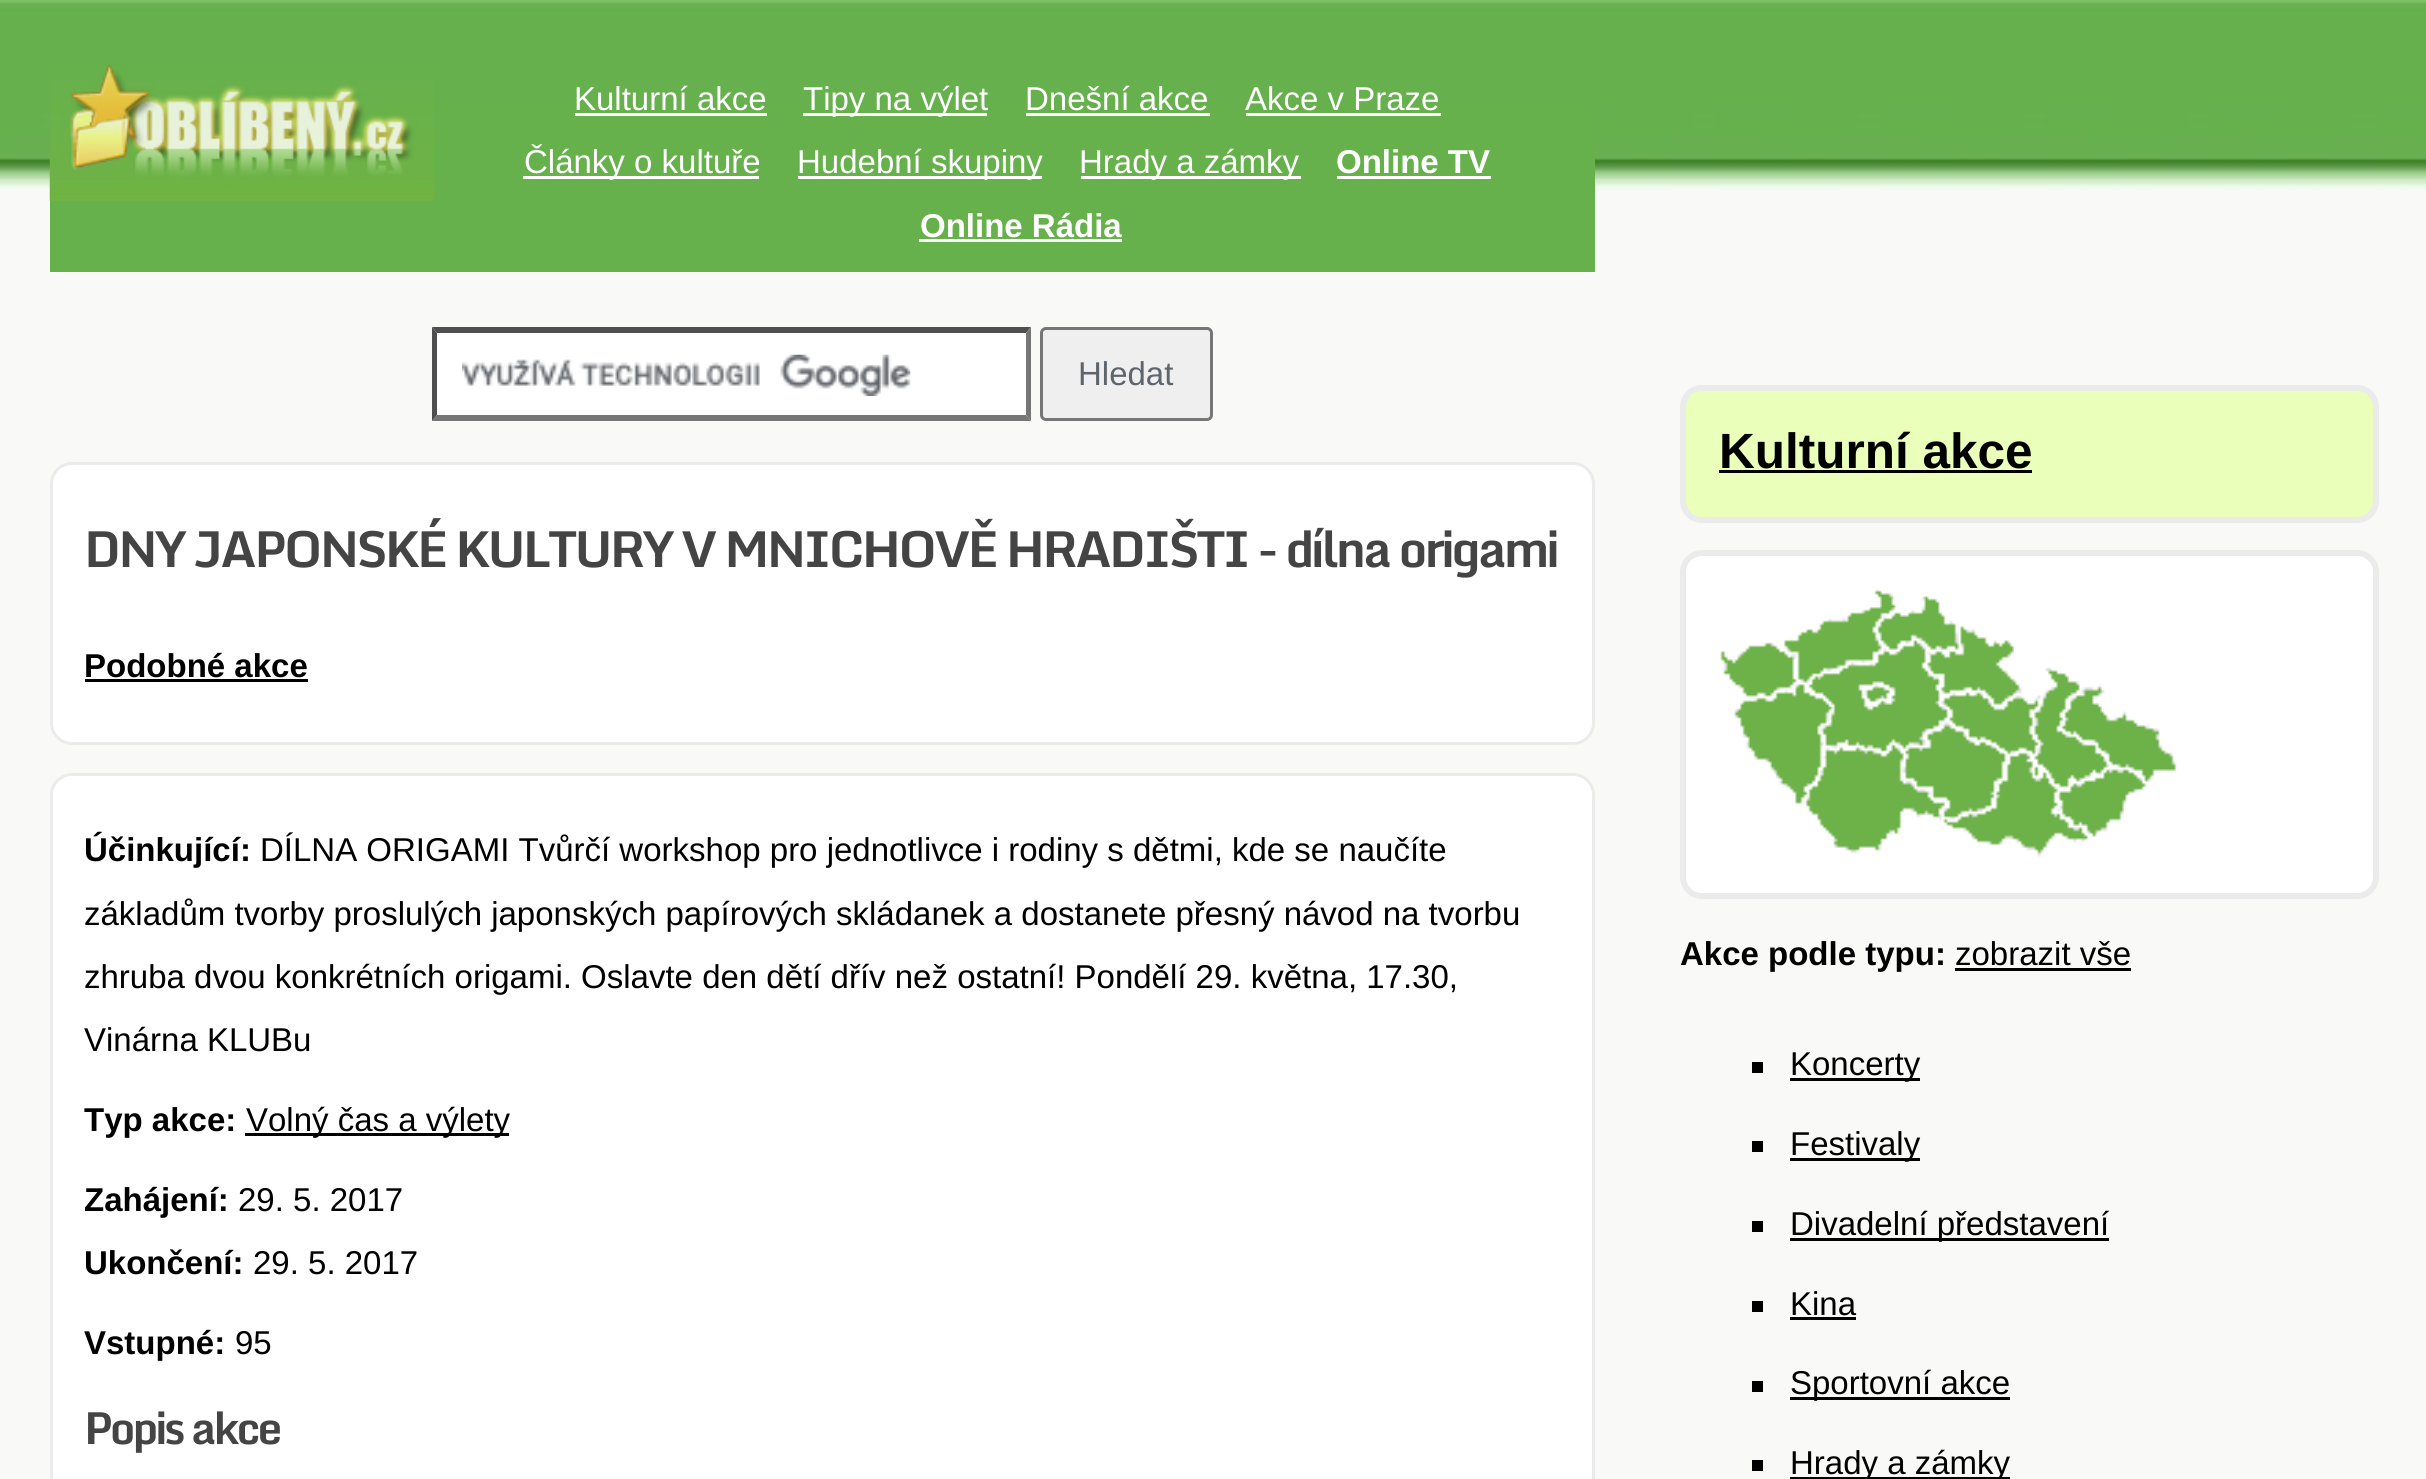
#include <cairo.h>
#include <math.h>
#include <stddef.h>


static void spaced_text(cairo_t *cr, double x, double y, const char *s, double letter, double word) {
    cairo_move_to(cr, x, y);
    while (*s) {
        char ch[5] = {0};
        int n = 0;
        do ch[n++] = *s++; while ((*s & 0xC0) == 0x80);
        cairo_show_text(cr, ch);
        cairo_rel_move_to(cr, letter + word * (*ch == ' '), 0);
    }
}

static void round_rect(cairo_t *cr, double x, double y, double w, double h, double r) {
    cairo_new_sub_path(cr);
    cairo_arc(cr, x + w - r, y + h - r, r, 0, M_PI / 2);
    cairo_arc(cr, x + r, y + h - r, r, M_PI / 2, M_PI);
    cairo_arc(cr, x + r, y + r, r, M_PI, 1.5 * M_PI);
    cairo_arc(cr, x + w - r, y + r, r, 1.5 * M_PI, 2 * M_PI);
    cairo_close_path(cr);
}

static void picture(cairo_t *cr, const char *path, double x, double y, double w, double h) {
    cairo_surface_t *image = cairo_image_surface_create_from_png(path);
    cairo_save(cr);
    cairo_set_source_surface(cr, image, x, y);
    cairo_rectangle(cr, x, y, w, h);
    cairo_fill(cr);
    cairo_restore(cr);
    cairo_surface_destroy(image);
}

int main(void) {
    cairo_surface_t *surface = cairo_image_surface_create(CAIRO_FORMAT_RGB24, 2426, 1479);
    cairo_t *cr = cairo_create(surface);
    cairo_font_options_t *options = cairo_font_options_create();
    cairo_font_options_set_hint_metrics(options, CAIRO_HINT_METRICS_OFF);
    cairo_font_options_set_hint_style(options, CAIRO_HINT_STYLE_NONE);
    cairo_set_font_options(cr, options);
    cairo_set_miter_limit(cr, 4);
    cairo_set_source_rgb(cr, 0.976, 0.976, 0.969);
    cairo_paint(cr);
    picture(cr, "img1.png", 0, 0, 2426, 190);
    cairo_set_source_rgb(cr, 0.404, 0.694, 0.298);
    cairo_rectangle(cr, 50, 105, 1545, 167);
    cairo_fill(cr);
    picture(cr, "img2.png", 49, 64, 386, 137);
    cairo_select_font_face(cr, "Liberation Sans", CAIRO_FONT_SLANT_NORMAL, CAIRO_FONT_WEIGHT_NORMAL);
    cairo_set_font_size(cr, 33);
    cairo_set_source_rgb(cr, 1, 1, 1);
    cairo_move_to(cr, 574, 110);
    cairo_show_text(cr, "Kulturní akce");
    cairo_rectangle(cr, 575, 113, 192, 3);
    cairo_fill(cr);
    cairo_rectangle(cr, 803, 113, 184, 3);
    cairo_fill(cr);
    cairo_move_to(cr, 803, 110);
    cairo_show_text(cr, "Tipy na výlet");
    cairo_move_to(cr, 1025, 110);
    cairo_show_text(cr, "Dnešní akce");
    cairo_rectangle(cr, 1026, 113, 184, 3);
    cairo_fill(cr);
    cairo_move_to(cr, 1245, 110);
    cairo_show_text(cr, "Akce v Praze");
    cairo_rectangle(cr, 1246, 113, 195, 3);
    cairo_fill(cr);
    cairo_rectangle(cr, 523, 176, 236, 3);
    cairo_fill(cr);
    cairo_move_to(cr, 524, 173);
    cairo_show_text(cr, "Články o kultuře");
    cairo_rectangle(cr, 798, 176, 244, 3);
    cairo_fill(cr);
    cairo_move_to(cr, 797, 173);
    cairo_show_text(cr, "Hudební skupiny");
    cairo_rectangle(cr, 1081, 176, 220, 3);
    cairo_fill(cr);
    cairo_move_to(cr, 1079, 173);
    cairo_show_text(cr, "Hrady a zámky");
    cairo_select_font_face(cr, "Liberation Sans", CAIRO_FONT_SLANT_NORMAL, CAIRO_FONT_WEIGHT_BOLD);
    cairo_move_to(cr, 1336, 173);
    cairo_show_text(cr, "Online TV");
    cairo_rectangle(cr, 1337, 176, 154, 3);
    cairo_fill(cr);
    cairo_move_to(cr, 920, 237);
    cairo_show_text(cr, "Online Rádia");
    cairo_rectangle(cr, 919, 239, 203, 3);
    cairo_fill(cr);
    cairo_rectangle(cr, 432, 327, 599, 94);
    cairo_fill(cr);
    picture(cr, "img3.png", 462, 354, 449, 42);
    cairo_set_source_rgb(cr, 0.31, 0.31, 0.31);
    cairo_new_path(cr);
    cairo_move_to(cr, 432, 327);
    cairo_line_to(cr, 1031, 327);
    cairo_line_to(cr, 1026, 333);
    cairo_line_to(cr, 437, 333);
    cairo_close_path(cr);
    cairo_fill(cr);
    cairo_set_source_rgb(cr, 0.463, 0.463, 0.463);
    cairo_new_path(cr);
    cairo_move_to(cr, 1031, 327);
    cairo_line_to(cr, 1031, 421);
    cairo_line_to(cr, 1026, 415);
    cairo_line_to(cr, 1026, 333);
    cairo_close_path(cr);
    cairo_fill(cr);
    cairo_new_path(cr);
    cairo_move_to(cr, 1031, 421);
    cairo_line_to(cr, 432, 421);
    cairo_line_to(cr, 437, 415);
    cairo_line_to(cr, 1026, 415);
    cairo_close_path(cr);
    cairo_fill(cr);
    cairo_set_source_rgb(cr, 0.31, 0.31, 0.31);
    cairo_new_path(cr);
    cairo_move_to(cr, 432, 421);
    cairo_line_to(cr, 432, 327);
    cairo_line_to(cr, 437, 333);
    cairo_line_to(cr, 437, 415);
    cairo_close_path(cr);
    cairo_fill(cr);
    cairo_set_source_rgb(cr, 0.937, 0.937, 0.937);
    round_rect(cr, 1041.5, 328.5, 170, 91, 4.5);
    cairo_fill_preserve(cr);
    cairo_set_source_rgb(cr, 0.463, 0.463, 0.463);
    cairo_set_line_width(cr, 3);
    cairo_stroke(cr);
    cairo_select_font_face(cr, "Liberation Sans", CAIRO_FONT_SLANT_NORMAL, CAIRO_FONT_WEIGHT_NORMAL);
    cairo_set_source_rgb(cr, 0.369, 0.396, 0.427);
    cairo_move_to(cr, 1078, 385);
    cairo_show_text(cr, "Hledat");
    cairo_set_source_rgb(cr, 1, 1, 1);
    round_rect(cr, 51.5, 463.5, 1542, 280, 20.5);
    cairo_fill_preserve(cr);
    cairo_set_source_rgb(cr, 0.918, 0.918, 0.918);
    cairo_stroke(cr);
    cairo_select_font_face(cr, "Monda", CAIRO_FONT_SLANT_NORMAL, CAIRO_FONT_WEIGHT_BOLD);
    cairo_set_font_size(cr, 49.5);
    cairo_set_source_rgb(cr, 0.267, 0.267, 0.267);
    spaced_text(cr, 84, 567, "DNY JAPONSKÉ KULTURY V MNICHOVĚ HRADIŠTI - dílna origami", -2.75, 0);
    cairo_select_font_face(cr, "Liberation Sans", CAIRO_FONT_SLANT_NORMAL, CAIRO_FONT_WEIGHT_BOLD);
    cairo_set_font_size(cr, 33);
    cairo_set_source_rgb(cr, 0, 0, 0);
    cairo_move_to(cr, 84, 677);
    cairo_show_text(cr, "Podobné akce");
    cairo_rectangle(cr, 85, 679, 223, 3);
    cairo_fill(cr);
    cairo_set_source_rgb(cr, 1, 1, 1);
    round_rect(cr, 51.5, 774.5, 1542, 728, 20.5);
    cairo_fill_preserve(cr);
    cairo_set_source_rgb(cr, 0.918, 0.918, 0.918);
    cairo_stroke(cr);
    cairo_set_source_rgb(cr, 0, 0, 0);
    cairo_move_to(cr, 84, 861);
    cairo_show_text(cr, "Účinkující:");
    cairo_select_font_face(cr, "Liberation Sans", CAIRO_FONT_SLANT_NORMAL, CAIRO_FONT_WEIGHT_NORMAL);
    cairo_move_to(cr, 260, 861);
    cairo_show_text(cr, "DÍLNA ORIGAMI Tvůrčí workshop pro jednotlivce i rodiny s dětmi, kde se naučíte");
    cairo_move_to(cr, 84, 925);
    cairo_show_text(cr, "základům tvorby proslulých japonských papírových skládanek a dostanete přesný návod na tvorbu");
    cairo_move_to(cr, 84, 988);
    cairo_show_text(cr, "zhruba dvou konkrétních origami. Oslavte den dětí dřív než ostatní! Pondělí 29. května, 17.30,");
    cairo_move_to(cr, 84, 1051);
    cairo_show_text(cr, "Vinárna KLUBu");
    cairo_select_font_face(cr, "Liberation Sans", CAIRO_FONT_SLANT_NORMAL, CAIRO_FONT_WEIGHT_BOLD);
    cairo_move_to(cr, 84, 1131);
    cairo_show_text(cr, "Typ akce:");
    cairo_rectangle(cr, 245, 1133, 264, 3);
    cairo_fill(cr);
    cairo_select_font_face(cr, "Liberation Sans", CAIRO_FONT_SLANT_NORMAL, CAIRO_FONT_WEIGHT_NORMAL);
    cairo_move_to(cr, 246, 1131);
    cairo_show_text(cr, "Volný čas a výlety");
    cairo_select_font_face(cr, "Liberation Sans", CAIRO_FONT_SLANT_NORMAL, CAIRO_FONT_WEIGHT_BOLD);
    cairo_move_to(cr, 84, 1211);
    cairo_show_text(cr, "Zahájení:");
    cairo_select_font_face(cr, "Liberation Sans", CAIRO_FONT_SLANT_NORMAL, CAIRO_FONT_WEIGHT_NORMAL);
    cairo_move_to(cr, 238, 1211);
    cairo_show_text(cr, "29. 5. 2017");
    cairo_select_font_face(cr, "Liberation Sans", CAIRO_FONT_SLANT_NORMAL, CAIRO_FONT_WEIGHT_BOLD);
    cairo_move_to(cr, 84, 1274);
    cairo_show_text(cr, "Ukončení:");
    cairo_select_font_face(cr, "Liberation Sans", CAIRO_FONT_SLANT_NORMAL, CAIRO_FONT_WEIGHT_NORMAL);
    cairo_move_to(cr, 253, 1274);
    cairo_show_text(cr, "29. 5. 2017");
    cairo_select_font_face(cr, "Liberation Sans", CAIRO_FONT_SLANT_NORMAL, CAIRO_FONT_WEIGHT_BOLD);
    cairo_move_to(cr, 84, 1354);
    cairo_show_text(cr, "Vstupné:");
    cairo_select_font_face(cr, "Liberation Sans", CAIRO_FONT_SLANT_NORMAL, CAIRO_FONT_WEIGHT_NORMAL);
    cairo_move_to(cr, 235, 1354);
    cairo_show_text(cr, "95");
    cairo_select_font_face(cr, "Monda", CAIRO_FONT_SLANT_NORMAL, CAIRO_FONT_WEIGHT_BOLD);
    cairo_set_font_size(cr, 44);
    cairo_set_source_rgb(cr, 0.267, 0.267, 0.267);
    spaced_text(cr, 84, 1444, "Popis akce", -2.75, 0);
    cairo_set_source_rgb(cr, 0.914, 1, 0.729);
    round_rect(cr, 1683, 388, 693, 132, 19);
    cairo_fill_preserve(cr);
    cairo_set_source_rgb(cr, 0.918, 0.918, 0.918);
    cairo_set_line_width(cr, 6);
    cairo_stroke(cr);
    cairo_select_font_face(cr, "Liberation Sans", CAIRO_FONT_SLANT_NORMAL, CAIRO_FONT_WEIGHT_BOLD);
    cairo_set_font_size(cr, 49.5);
    cairo_set_source_rgb(cr, 0, 0, 0);
    cairo_move_to(cr, 1719, 468);
    cairo_show_text(cr, "Kulturní akce");
    cairo_rectangle(cr, 1719, 470, 313, 3);
    cairo_fill(cr);
    cairo_set_source_rgb(cr, 1, 1, 1);
    round_rect(cr, 1683, 553, 693, 343, 19);
    cairo_fill_preserve(cr);
    cairo_set_source_rgb(cr, 0.918, 0.918, 0.918);
    cairo_stroke(cr);
    picture(cr, "img4.png", 1720, 589, 457, 269);
    cairo_set_font_size(cr, 33);
    cairo_set_source_rgb(cr, 0, 0, 0);
    cairo_move_to(cr, 1680, 965);
    cairo_show_text(cr, "Akce podle typu:");
    cairo_select_font_face(cr, "Liberation Sans", CAIRO_FONT_SLANT_NORMAL, CAIRO_FONT_WEIGHT_NORMAL);
    cairo_move_to(cr, 1955, 965);
    cairo_show_text(cr, "zobrazit vše");
    cairo_rectangle(cr, 1955, 968, 176, 3);
    cairo_fill(cr);
    cairo_rectangle(cr, 1752, 1062, 11, 11);
    cairo_fill(cr);
    cairo_rectangle(cr, 1790, 1078, 130, 3);
    cairo_fill(cr);
    cairo_move_to(cr, 1790, 1075);
    cairo_show_text(cr, "Koncerty");
    cairo_rectangle(cr, 1752, 1141, 11, 11);
    cairo_fill(cr);
    cairo_rectangle(cr, 1790, 1158, 130, 3);
    cairo_fill(cr);
    cairo_move_to(cr, 1790, 1155);
    cairo_show_text(cr, "Festivaly");
    cairo_rectangle(cr, 1752, 1221, 11, 11);
    cairo_fill(cr);
    cairo_rectangle(cr, 1790, 1238, 319, 3);
    cairo_fill(cr);
    cairo_move_to(cr, 1790, 1235);
    cairo_show_text(cr, "Divadelní představení");
    cairo_rectangle(cr, 1752, 1301, 11, 11);
    cairo_fill(cr);
    cairo_move_to(cr, 1790, 1315);
    cairo_show_text(cr, "Kina");
    cairo_rectangle(cr, 1790, 1317, 66, 3);
    cairo_fill(cr);
    cairo_rectangle(cr, 1752, 1381, 11, 11);
    cairo_fill(cr);
    cairo_rectangle(cr, 1790, 1397, 220, 3);
    cairo_fill(cr);
    cairo_move_to(cr, 1790, 1394);
    cairo_show_text(cr, "Sportovní akce");
    cairo_rectangle(cr, 1752, 1460, 11, 11);
    cairo_fill(cr);
    cairo_rectangle(cr, 1790, 1477, 220, 2);
    cairo_fill(cr);
    cairo_move_to(cr, 1790, 1474);
    cairo_show_text(cr, "Hrady a zámky");
    cairo_surface_write_to_png(surface, "page.png");
    cairo_font_options_destroy(options);
    cairo_destroy(cr);
    cairo_surface_destroy(surface);
    return 0;
}
